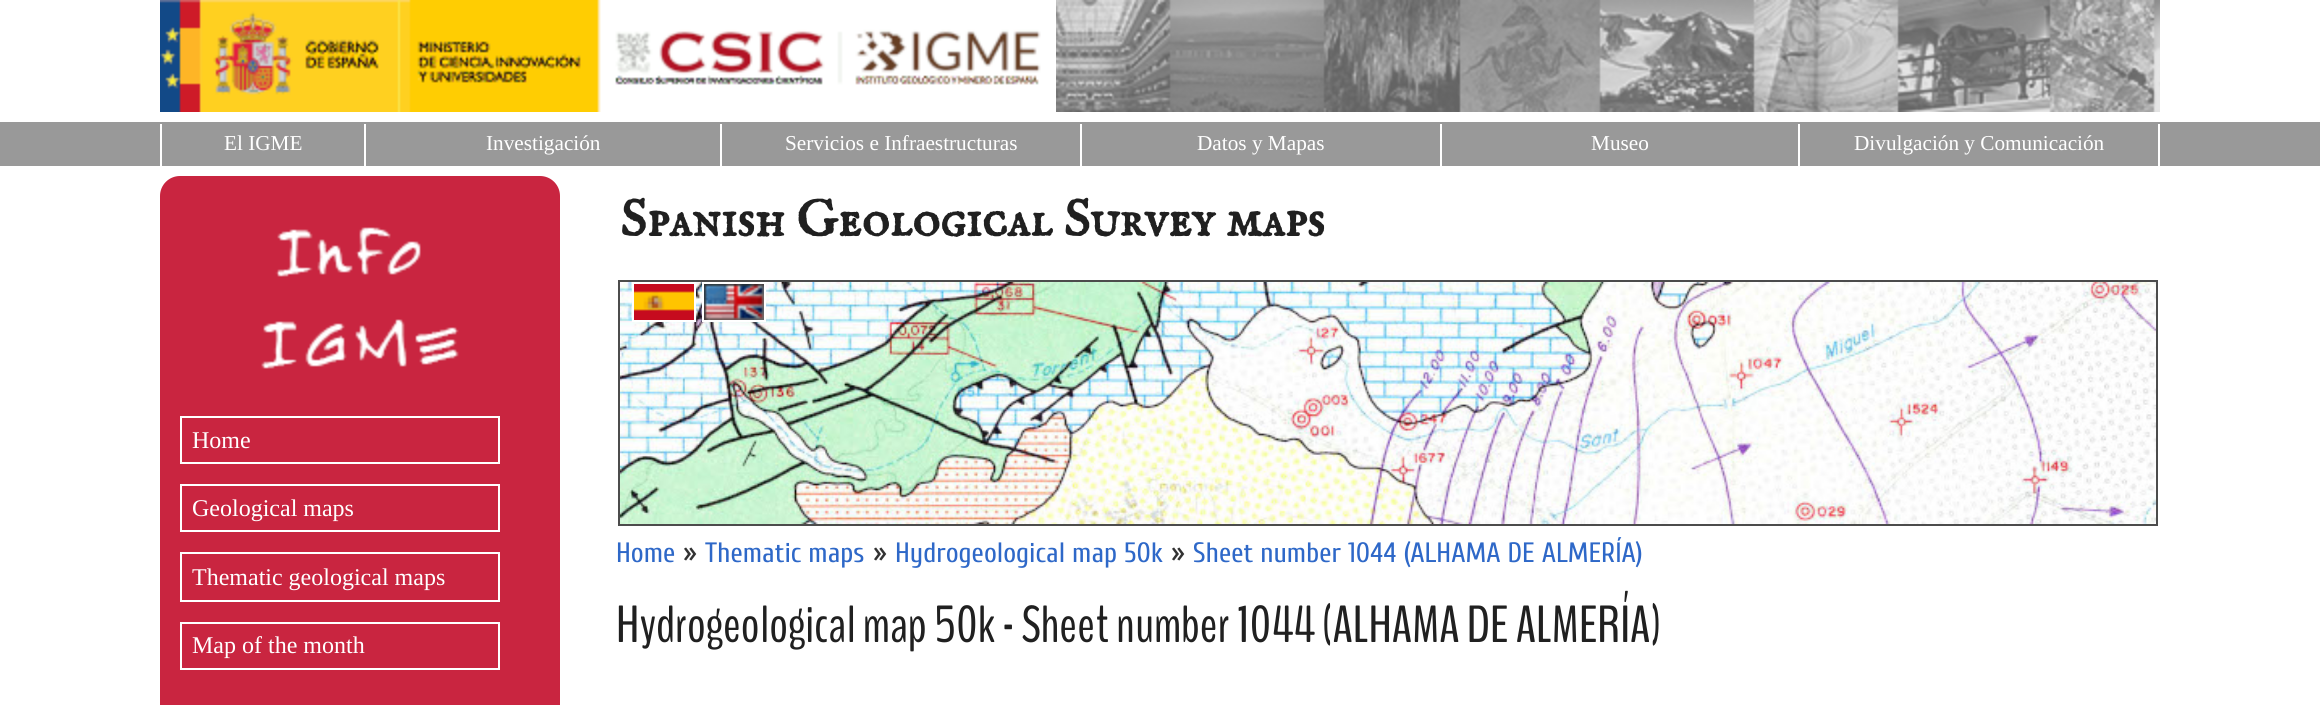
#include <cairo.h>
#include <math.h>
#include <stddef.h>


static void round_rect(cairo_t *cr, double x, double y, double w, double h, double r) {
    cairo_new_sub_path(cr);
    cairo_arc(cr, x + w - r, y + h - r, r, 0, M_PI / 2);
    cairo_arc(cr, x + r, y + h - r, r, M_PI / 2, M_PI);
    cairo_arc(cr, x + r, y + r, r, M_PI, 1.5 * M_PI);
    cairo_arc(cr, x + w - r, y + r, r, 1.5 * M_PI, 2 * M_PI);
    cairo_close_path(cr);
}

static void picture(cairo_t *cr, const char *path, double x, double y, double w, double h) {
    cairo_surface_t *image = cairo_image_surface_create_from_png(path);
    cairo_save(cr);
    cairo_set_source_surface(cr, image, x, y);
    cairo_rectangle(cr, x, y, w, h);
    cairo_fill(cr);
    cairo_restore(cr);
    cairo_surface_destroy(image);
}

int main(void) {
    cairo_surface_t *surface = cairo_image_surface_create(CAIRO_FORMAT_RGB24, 2320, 705);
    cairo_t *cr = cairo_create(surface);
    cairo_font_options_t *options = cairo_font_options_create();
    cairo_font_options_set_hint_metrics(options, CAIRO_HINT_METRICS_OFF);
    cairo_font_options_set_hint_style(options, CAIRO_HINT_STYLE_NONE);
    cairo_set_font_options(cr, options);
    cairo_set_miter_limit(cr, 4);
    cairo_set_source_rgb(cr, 1, 1, 1);
    cairo_paint(cr);
    picture(cr, "img1.png", 1056, 0, 1104, 112);
    picture(cr, "img2.png", 160, 0, 896, 112);
    cairo_set_source_rgb(cr, 0.6, 0.6, 0.6);
    cairo_rectangle(cr, 0, 122, 2320, 44);
    cairo_fill(cr);
    cairo_set_source_rgb(cr, 1, 1, 1);
    cairo_rectangle(cr, 364, 124, 2, 42);
    cairo_fill(cr);
    cairo_rectangle(cr, 160, 124, 2, 42);
    cairo_fill(cr);
    cairo_select_font_face(cr, "Liberation Serif", CAIRO_FONT_SLANT_NORMAL, CAIRO_FONT_WEIGHT_NORMAL);
    cairo_set_font_size(cr, 21.25);
    cairo_move_to(cr, 224, 150);
    cairo_show_text(cr, "El IGME");
    cairo_rectangle(cr, 720, 124, 2, 42);
    cairo_fill(cr);
    cairo_move_to(cr, 486, 150);
    cairo_show_text(cr, "Investigación");
    cairo_rectangle(cr, 1080, 124, 2, 42);
    cairo_fill(cr);
    cairo_move_to(cr, 785, 150);
    cairo_show_text(cr, "Servicios e Infraestructuras");
    cairo_rectangle(cr, 1440, 124, 2, 42);
    cairo_fill(cr);
    cairo_move_to(cr, 1197, 150);
    cairo_show_text(cr, "Datos y Mapas");
    cairo_rectangle(cr, 1798, 124, 2, 42);
    cairo_fill(cr);
    cairo_move_to(cr, 1591, 150);
    cairo_show_text(cr, "Museo");
    cairo_rectangle(cr, 2158, 124, 2, 42);
    cairo_fill(cr);
    cairo_move_to(cr, 1854, 150);
    cairo_show_text(cr, "Divulgación y Comunicación");
    cairo_set_source_rgb(cr, 0.788, 0.145, 0.251);
    round_rect(cr, 160, 176, 400, 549, 20);
    cairo_fill(cr);
    picture(cr, "img3.png", 261, 227, 198, 142);
    cairo_rectangle(cr, 181, 417, 318, 46);
    cairo_set_source_rgb(cr, 1, 1, 1);
    cairo_stroke(cr);
    cairo_set_font_size(cr, 24);
    cairo_move_to(cr, 192, 448);
    cairo_show_text(cr, "Home");
    cairo_rectangle(cr, 181, 485, 318, 46);
    cairo_stroke(cr);
    cairo_move_to(cr, 192, 516);
    cairo_show_text(cr, "Geological maps");
    cairo_rectangle(cr, 181, 553, 318, 48);
    cairo_stroke(cr);
    cairo_move_to(cr, 192, 585);
    cairo_show_text(cr, "Thematic geological maps");
    cairo_rectangle(cr, 181, 623, 318, 46);
    cairo_stroke(cr);
    cairo_move_to(cr, 192, 653);
    cairo_show_text(cr, "Map of the month");
    cairo_select_font_face(cr, "IM FELL English SC", CAIRO_FONT_SLANT_NORMAL, CAIRO_FONT_WEIGHT_BOLD);
    cairo_set_font_size(cr, 52);
    cairo_set_source_rgb(cr, 0.125, 0.125, 0.125);
    cairo_move_to(cr, 620, 236);
    cairo_show_text(cr, "Spanish Geological Survey maps");
    cairo_rectangle(cr, 619, 281, 1538, 244);
    cairo_set_source_rgb(cr, 0.298, 0.298, 0.298);
    cairo_stroke(cr);
    picture(cr, "img4.png", 620, 282, 1536, 242);
    cairo_rectangle(cr, 633, 283, 62, 38);
    cairo_set_source_rgb(cr, 1, 1, 1);
    cairo_stroke(cr);
    picture(cr, "img5.png", 634, 284, 60, 36);
    cairo_rectangle(cr, 703, 283, 62, 38);
    cairo_stroke(cr);
    picture(cr, "img6.png", 704, 284, 60, 36);
    cairo_select_font_face(cr, "Cuprum", CAIRO_FONT_SLANT_NORMAL, CAIRO_FONT_WEIGHT_NORMAL);
    cairo_set_font_size(cr, 28);
    cairo_set_source_rgb(cr, 0.18, 0.408, 0.784);
    cairo_move_to(cr, 616, 562);
    cairo_show_text(cr, "Home");
    cairo_set_font_size(cr, 32);
    cairo_set_source_rgb(cr, 0.2, 0.2, 0.2);
    cairo_move_to(cr, 683, 562);
    cairo_show_text(cr, "»");
    cairo_set_font_size(cr, 28);
    cairo_set_source_rgb(cr, 0.18, 0.408, 0.784);
    cairo_move_to(cr, 705, 562);
    cairo_show_text(cr, "Thematic maps");
    cairo_set_font_size(cr, 32);
    cairo_set_source_rgb(cr, 0.2, 0.2, 0.2);
    cairo_move_to(cr, 873, 562);
    cairo_show_text(cr, "»");
    cairo_set_font_size(cr, 28);
    cairo_set_source_rgb(cr, 0.18, 0.408, 0.784);
    cairo_move_to(cr, 895, 562);
    cairo_show_text(cr, "Hydrogeological map 50k");
    cairo_set_font_size(cr, 32);
    cairo_set_source_rgb(cr, 0.2, 0.2, 0.2);
    cairo_move_to(cr, 1171, 562);
    cairo_show_text(cr, "»");
    cairo_set_font_size(cr, 28);
    cairo_set_source_rgb(cr, 0.18, 0.408, 0.784);
    cairo_move_to(cr, 1193, 562);
    cairo_show_text(cr, "Sheet number 1044 (ALHAMA DE ALMERÍA)");
    cairo_select_font_face(cr, "BenchNine", CAIRO_FONT_SLANT_NORMAL, CAIRO_FONT_WEIGHT_NORMAL);
    cairo_set_font_size(cr, 52);
    cairo_set_source_rgb(cr, 0.125, 0.125, 0.125);
    cairo_move_to(cr, 616, 642);
    cairo_show_text(cr, "Hydrogeological map 50k - Sheet number 1044 (ALHAMA DE ALMERÍA)");
    cairo_surface_write_to_png(surface, "page.png");
    cairo_font_options_destroy(options);
    cairo_destroy(cr);
    cairo_surface_destroy(surface);
    return 0;
}
